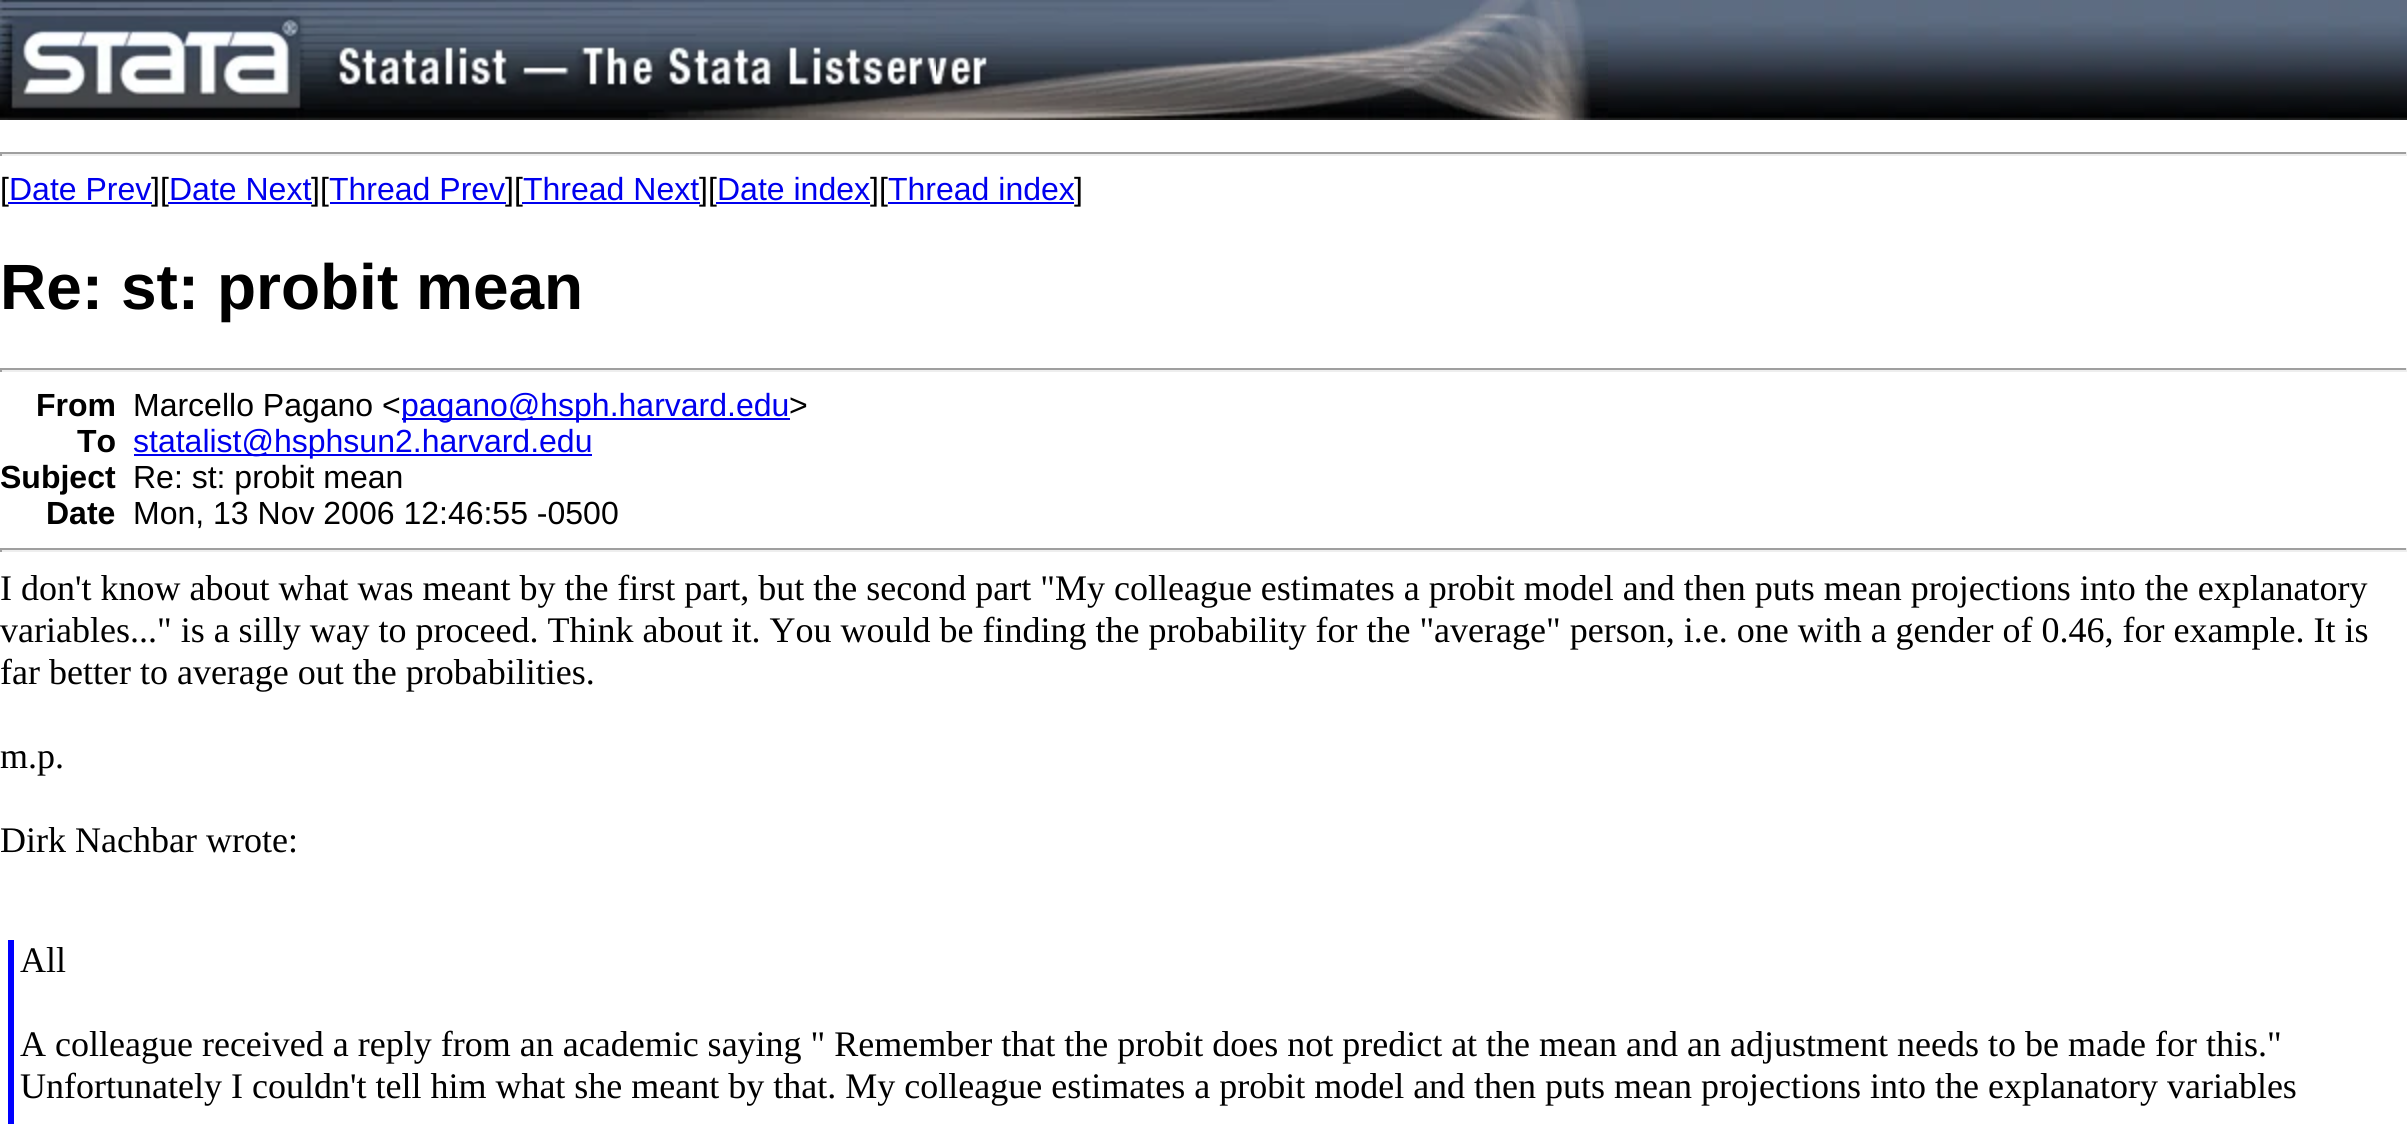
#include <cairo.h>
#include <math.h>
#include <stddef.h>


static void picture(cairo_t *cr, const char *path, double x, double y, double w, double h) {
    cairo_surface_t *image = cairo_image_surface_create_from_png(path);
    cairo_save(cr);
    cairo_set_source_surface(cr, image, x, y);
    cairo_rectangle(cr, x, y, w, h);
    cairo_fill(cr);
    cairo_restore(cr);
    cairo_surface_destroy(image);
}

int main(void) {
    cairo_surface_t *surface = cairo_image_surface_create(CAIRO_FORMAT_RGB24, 2407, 1124);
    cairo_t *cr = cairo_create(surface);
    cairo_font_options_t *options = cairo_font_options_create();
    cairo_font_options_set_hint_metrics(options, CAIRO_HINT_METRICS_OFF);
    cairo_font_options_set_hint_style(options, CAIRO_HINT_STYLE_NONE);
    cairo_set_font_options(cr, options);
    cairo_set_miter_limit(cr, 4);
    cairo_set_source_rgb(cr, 1, 1, 1);
    cairo_paint(cr);
    picture(cr, "img1.png", 0, 0, 936, 120);
    picture(cr, "img2.png", 936, 0, 468, 120);
    picture(cr, "img3.png", 1404, 0, 204, 120);
    picture(cr, "img4.png", 1608, 0, 799, 120);
    cairo_set_source_rgb(cr, 0.624, 0.624, 0.624);
    cairo_rectangle(cr, 0, 152, 2407, 2);
    cairo_fill(cr);
    cairo_set_source_rgb(cr, 0.933, 0.933, 0.933);
    cairo_rectangle(cr, 2406, 152, 1, 4);
    cairo_fill(cr);
    cairo_rectangle(cr, 0, 154, 2407, 2);
    cairo_fill(cr);
    cairo_set_source_rgb(cr, 0.624, 0.624, 0.624);
    cairo_rectangle(cr, 0, 152, 2, 4);
    cairo_fill(cr);
    cairo_select_font_face(cr, "Liberation Sans", CAIRO_FONT_SLANT_NORMAL, CAIRO_FONT_WEIGHT_NORMAL);
    cairo_set_font_size(cr, 32);
    cairo_set_source_rgb(cr, 0, 0, 0);
    cairo_move_to(cr, 0, 200);
    cairo_show_text(cr, "[");
    cairo_set_source_rgb(cr, 0, 0, 0.933);
    cairo_move_to(cr, 9, 200);
    cairo_show_text(cr, "Date Prev");
    cairo_rectangle(cr, 8, 202, 144, 2);
    cairo_fill(cr);
    cairo_set_source_rgb(cr, 0, 0, 0);
    cairo_move_to(cr, 151, 200);
    cairo_show_text(cr, "][");
    cairo_set_source_rgb(cr, 0, 0, 0.933);
    cairo_move_to(cr, 169, 200);
    cairo_show_text(cr, "Date Next");
    cairo_rectangle(cr, 168, 202, 144, 2);
    cairo_fill(cr);
    cairo_set_source_rgb(cr, 0, 0, 0);
    cairo_move_to(cr, 311, 200);
    cairo_show_text(cr, "][");
    cairo_set_source_rgb(cr, 0, 0, 0.933);
    cairo_move_to(cr, 329, 200);
    cairo_show_text(cr, "Thread Prev");
    cairo_rectangle(cr, 330, 202, 176, 2);
    cairo_fill(cr);
    cairo_set_source_rgb(cr, 0, 0, 0);
    cairo_move_to(cr, 505, 200);
    cairo_show_text(cr, "][");
    cairo_set_source_rgb(cr, 0, 0, 0.933);
    cairo_move_to(cr, 523, 200);
    cairo_show_text(cr, "Thread Next");
    cairo_rectangle(cr, 522, 202, 178, 2);
    cairo_fill(cr);
    cairo_set_source_rgb(cr, 0, 0, 0);
    cairo_move_to(cr, 699, 200);
    cairo_show_text(cr, "][");
    cairo_set_source_rgb(cr, 0, 0, 0.933);
    cairo_move_to(cr, 717, 200);
    cairo_show_text(cr, "Date index");
    cairo_rectangle(cr, 716, 202, 154, 2);
    cairo_fill(cr);
    cairo_set_source_rgb(cr, 0, 0, 0);
    cairo_move_to(cr, 870, 200);
    cairo_show_text(cr, "][");
    cairo_set_source_rgb(cr, 0, 0, 0.933);
    cairo_move_to(cr, 888, 200);
    cairo_show_text(cr, "Thread index");
    cairo_rectangle(cr, 888, 202, 186, 2);
    cairo_fill(cr);
    cairo_set_source_rgb(cr, 0, 0, 0);
    cairo_move_to(cr, 1074, 200);
    cairo_show_text(cr, "]");
    cairo_select_font_face(cr, "Liberation Sans", CAIRO_FONT_SLANT_NORMAL, CAIRO_FONT_WEIGHT_BOLD);
    cairo_set_font_size(cr, 64);
    cairo_move_to(cr, 0, 309);
    cairo_show_text(cr, "Re: st: probit mean");
    cairo_set_source_rgb(cr, 0.624, 0.624, 0.624);
    cairo_rectangle(cr, 0, 368, 2407, 2);
    cairo_fill(cr);
    cairo_set_source_rgb(cr, 0.933, 0.933, 0.933);
    cairo_rectangle(cr, 2406, 368, 1, 4);
    cairo_fill(cr);
    cairo_rectangle(cr, 0, 370, 2407, 2);
    cairo_fill(cr);
    cairo_set_source_rgb(cr, 0.624, 0.624, 0.624);
    cairo_rectangle(cr, 0, 368, 2, 4);
    cairo_fill(cr);
    cairo_set_font_size(cr, 32);
    cairo_set_source_rgb(cr, 0, 0, 0);
    cairo_move_to(cr, 36, 416);
    cairo_show_text(cr, "From");
    cairo_select_font_face(cr, "Liberation Sans", CAIRO_FONT_SLANT_NORMAL, CAIRO_FONT_WEIGHT_NORMAL);
    cairo_move_to(cr, 133, 416);
    cairo_show_text(cr, "Marcello Pagano <");
    cairo_set_source_rgb(cr, 0, 0, 0.933);
    cairo_rectangle(cr, 402, 418, 388, 2);
    cairo_fill(cr);
    cairo_move_to(cr, 401, 416);
    cairo_show_text(cr, "pagano@hsph.harvard.edu");
    cairo_set_source_rgb(cr, 0, 0, 0);
    cairo_move_to(cr, 789, 416);
    cairo_show_text(cr, ">");
    cairo_select_font_face(cr, "Liberation Sans", CAIRO_FONT_SLANT_NORMAL, CAIRO_FONT_WEIGHT_BOLD);
    cairo_move_to(cr, 77, 452);
    cairo_show_text(cr, "To");
    cairo_set_source_rgb(cr, 0, 0, 0.933);
    cairo_rectangle(cr, 134, 454, 458, 2);
    cairo_fill(cr);
    cairo_select_font_face(cr, "Liberation Sans", CAIRO_FONT_SLANT_NORMAL, CAIRO_FONT_WEIGHT_NORMAL);
    cairo_move_to(cr, 133, 452);
    cairo_show_text(cr, "statalist@hsphsun2.harvard.edu");
    cairo_select_font_face(cr, "Liberation Sans", CAIRO_FONT_SLANT_NORMAL, CAIRO_FONT_WEIGHT_BOLD);
    cairo_set_source_rgb(cr, 0, 0, 0);
    cairo_move_to(cr, 0, 488);
    cairo_show_text(cr, "Subject");
    cairo_select_font_face(cr, "Liberation Sans", CAIRO_FONT_SLANT_NORMAL, CAIRO_FONT_WEIGHT_NORMAL);
    cairo_move_to(cr, 133, 488);
    cairo_show_text(cr, "Re: st: probit mean");
    cairo_select_font_face(cr, "Liberation Sans", CAIRO_FONT_SLANT_NORMAL, CAIRO_FONT_WEIGHT_BOLD);
    cairo_move_to(cr, 46, 524);
    cairo_show_text(cr, "Date");
    cairo_select_font_face(cr, "Liberation Sans", CAIRO_FONT_SLANT_NORMAL, CAIRO_FONT_WEIGHT_NORMAL);
    cairo_move_to(cr, 133, 524);
    cairo_show_text(cr, "Mon, 13 Nov 2006 12:46:55 -0500");
    cairo_set_source_rgb(cr, 0.624, 0.624, 0.624);
    cairo_rectangle(cr, 0, 548, 2407, 2);
    cairo_fill(cr);
    cairo_set_source_rgb(cr, 0.933, 0.933, 0.933);
    cairo_rectangle(cr, 2406, 548, 1, 4);
    cairo_fill(cr);
    cairo_rectangle(cr, 0, 550, 2407, 2);
    cairo_fill(cr);
    cairo_set_source_rgb(cr, 0.624, 0.624, 0.624);
    cairo_rectangle(cr, 0, 548, 2, 4);
    cairo_fill(cr);
    cairo_select_font_face(cr, "Liberation Serif", CAIRO_FONT_SLANT_NORMAL, CAIRO_FONT_WEIGHT_NORMAL);
    cairo_set_font_size(cr, 36);
    cairo_set_source_rgb(cr, 0, 0, 0);
    cairo_move_to(cr, 0, 600);
    cairo_show_text(cr, "I don't know about what was meant by the first part, but the second part \"My colleague estimates a probit model and then puts mean projections into the explanatory");
    cairo_move_to(cr, 0, 642);
    cairo_show_text(cr, "variables...\" is a silly way to proceed. Think about it. You would be finding the probability for the \"average\" person, i.e. one with a gender of 0.46, for example. It is");
    cairo_move_to(cr, 0, 684);
    cairo_show_text(cr, "far better to average out the probabilities.");
    cairo_move_to(cr, 0, 768);
    cairo_show_text(cr, "m.p.");
    cairo_move_to(cr, 0, 852);
    cairo_show_text(cr, "Dirk Nachbar wrote:");
    cairo_set_source_rgb(cr, 0, 0, 1);
    cairo_rectangle(cr, 8, 940, 6, 184);
    cairo_fill(cr);
    cairo_set_source_rgb(cr, 0, 0, 0);
    cairo_move_to(cr, 20, 972);
    cairo_show_text(cr, "All");
    cairo_move_to(cr, 20, 1056);
    cairo_show_text(cr, "A colleague received a reply from an academic saying \" Remember that the probit does not predict at the mean and an adjustment needs to be made for this.\"");
    cairo_move_to(cr, 20, 1098);
    cairo_show_text(cr, "Unfortunately I couldn't tell him what she meant by that. My colleague estimates a probit model and then puts mean projections into the explanatory variables");
    cairo_surface_write_to_png(surface, "page.png");
    cairo_font_options_destroy(options);
    cairo_destroy(cr);
    cairo_surface_destroy(surface);
    return 0;
}
